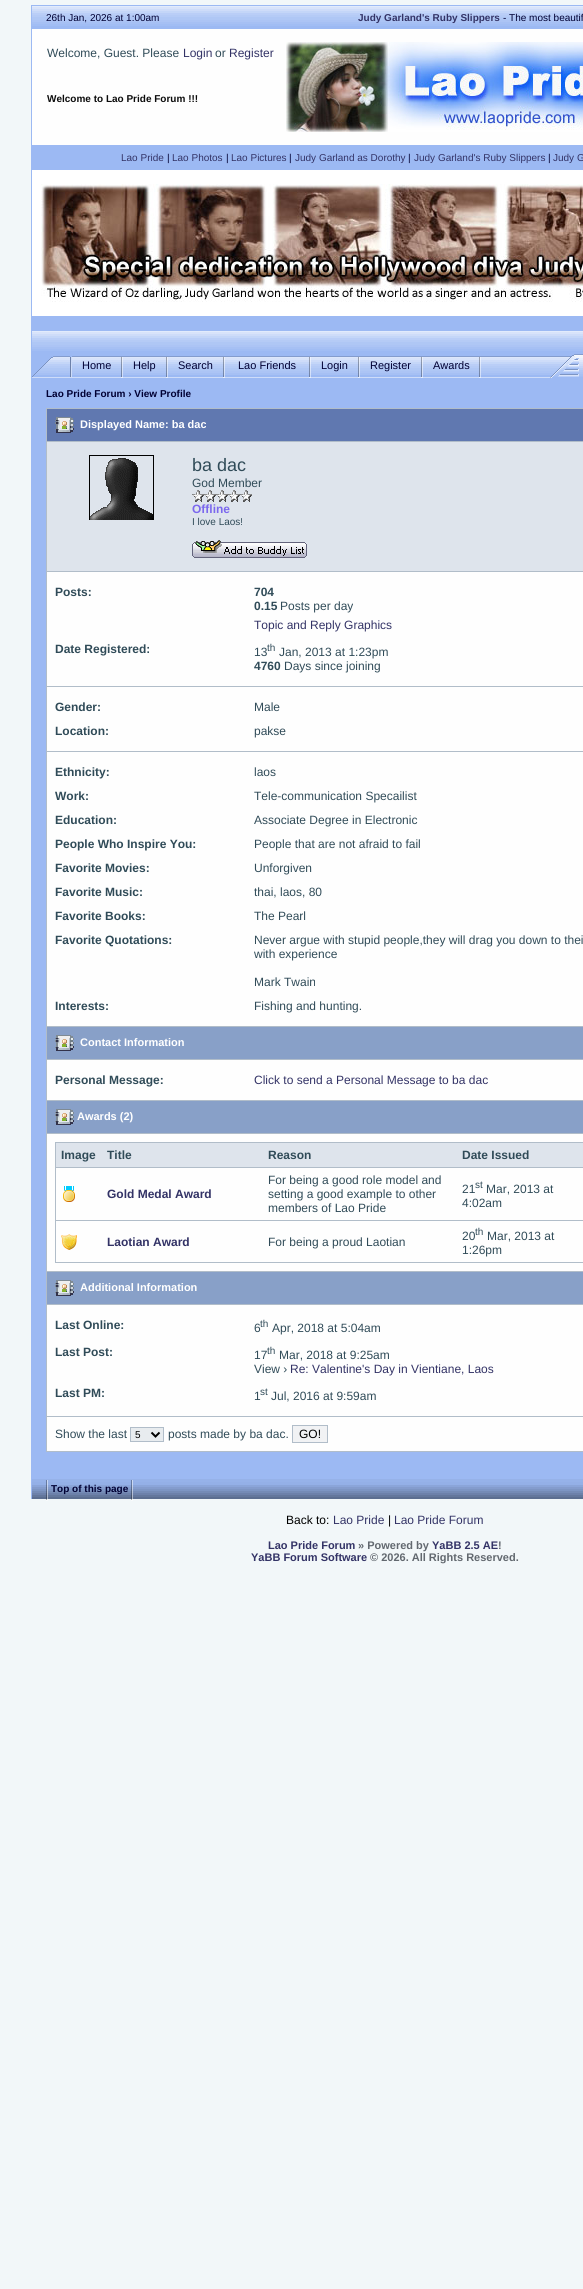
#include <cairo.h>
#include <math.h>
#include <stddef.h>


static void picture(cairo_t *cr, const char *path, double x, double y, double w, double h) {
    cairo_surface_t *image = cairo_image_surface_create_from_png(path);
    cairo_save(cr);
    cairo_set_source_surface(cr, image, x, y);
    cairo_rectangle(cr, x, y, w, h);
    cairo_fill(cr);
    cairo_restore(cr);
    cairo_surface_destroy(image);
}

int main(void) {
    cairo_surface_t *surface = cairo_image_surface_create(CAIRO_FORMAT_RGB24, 583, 2289);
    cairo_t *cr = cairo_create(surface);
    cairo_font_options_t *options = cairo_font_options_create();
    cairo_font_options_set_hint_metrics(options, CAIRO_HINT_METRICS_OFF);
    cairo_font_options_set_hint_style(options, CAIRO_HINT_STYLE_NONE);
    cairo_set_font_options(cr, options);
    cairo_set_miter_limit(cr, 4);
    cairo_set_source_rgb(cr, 0.949, 0.965, 0.976);
    cairo_paint(cr);
    cairo_set_source_rgb(cr, 0.612, 0.725, 0.953);
    cairo_rectangle(cr, 31, 5, 552, 1494);
    cairo_fill(cr);
    picture(cr, "img1.png", 32, 6, 551, 20);
    cairo_select_font_face(cr, "Liberation Sans", CAIRO_FONT_SLANT_NORMAL, CAIRO_FONT_WEIGHT_NORMAL);
    cairo_set_font_size(cr, 10);
    cairo_set_source_rgb(cr, 0, 0, 0.2);
    cairo_move_to(cr, 46, 21);
    cairo_show_text(cr, "26th Jan, 2026 at 1:00am");
    cairo_select_font_face(cr, "Liberation Sans", CAIRO_FONT_SLANT_NORMAL, CAIRO_FONT_WEIGHT_BOLD);
    cairo_set_source_rgb(cr, 0.2, 0.2, 0.4);
    cairo_move_to(cr, 358, 21);
    cairo_show_text(cr, "Judy Garland's Ruby Slippers");
    cairo_select_font_face(cr, "Liberation Sans", CAIRO_FONT_SLANT_NORMAL, CAIRO_FONT_WEIGHT_NORMAL);
    cairo_set_source_rgb(cr, 0, 0, 0.2);
    cairo_move_to(cr, 503, 21);
    cairo_show_text(cr, "- The most beautif");
    cairo_set_source_rgb(cr, 0.996, 0.996, 0.996);
    cairo_rectangle(cr, 32, 29, 551, 116);
    cairo_fill(cr);
    cairo_set_font_size(cr, 12);
    cairo_set_source_rgb(cr, 0.188, 0.294, 0.345);
    cairo_move_to(cr, 47, 57);
    cairo_show_text(cr, "Welcome, Guest. Please");
    cairo_set_source_rgb(cr, 0.2, 0.2, 0.4);
    cairo_move_to(cr, 183, 57);
    cairo_show_text(cr, "Login");
    cairo_set_source_rgb(cr, 0.188, 0.294, 0.345);
    cairo_move_to(cr, 215, 57);
    cairo_show_text(cr, "or");
    cairo_set_source_rgb(cr, 0.2, 0.2, 0.4);
    cairo_move_to(cr, 229, 57);
    cairo_show_text(cr, "Register");
    picture(cr, "img2.png", 286, 42, 297, 90);
    cairo_select_font_face(cr, "Liberation Sans", CAIRO_FONT_SLANT_NORMAL, CAIRO_FONT_WEIGHT_BOLD);
    cairo_set_font_size(cr, 10);
    cairo_set_source_rgb(cr, 0.047, 0.047, 0.047);
    cairo_move_to(cr, 47, 102);
    cairo_show_text(cr, "Welcome to Lao Pride Forum !!!");
    cairo_select_font_face(cr, "Liberation Sans", CAIRO_FONT_SLANT_NORMAL, CAIRO_FONT_WEIGHT_NORMAL);
    cairo_set_source_rgb(cr, 0.2, 0.2, 0.4);
    cairo_move_to(cr, 121, 161);
    cairo_show_text(cr, "Lao Pride");
    cairo_set_source_rgb(cr, 0, 0, 0.2);
    cairo_move_to(cr, 167, 161);
    cairo_show_text(cr, "|");
    cairo_set_source_rgb(cr, 0.2, 0.2, 0.4);
    cairo_move_to(cr, 172, 161);
    cairo_show_text(cr, "Lao Photos");
    cairo_set_source_rgb(cr, 0, 0, 0.2);
    cairo_move_to(cr, 226, 161);
    cairo_show_text(cr, "|");
    cairo_set_source_rgb(cr, 0.2, 0.2, 0.4);
    cairo_move_to(cr, 231, 161);
    cairo_show_text(cr, "Lao Pictures");
    cairo_set_source_rgb(cr, 0, 0, 0.2);
    cairo_move_to(cr, 289, 161);
    cairo_show_text(cr, "|");
    cairo_set_source_rgb(cr, 0.2, 0.2, 0.4);
    cairo_move_to(cr, 295, 161);
    cairo_show_text(cr, "Judy Garland as Dorothy");
    cairo_set_source_rgb(cr, 0, 0, 0.2);
    cairo_move_to(cr, 408, 161);
    cairo_show_text(cr, "|");
    cairo_set_source_rgb(cr, 0.2, 0.2, 0.4);
    cairo_move_to(cr, 414, 161);
    cairo_show_text(cr, "Judy Garland's Ruby Slippers");
    cairo_set_source_rgb(cr, 0, 0, 0.2);
    cairo_move_to(cr, 548, 161);
    cairo_show_text(cr, "|");
    cairo_set_source_rgb(cr, 0.2, 0.2, 0.4);
    cairo_move_to(cr, 553, 161);
    cairo_show_text(cr, "Judy G");
    cairo_set_source_rgb(cr, 1, 1, 1);
    cairo_rectangle(cr, 32, 170, 551, 146);
    cairo_fill(cr);
    picture(cr, "img3.png", 41, 184, 542, 118);
    picture(cr, "img1.png", 32, 331, 551, 20);
    picture(cr, "img4.png", 32, 356, 40, 22);
    picture(cr, "img5.png", 121, 356, 371, 22);
    picture(cr, "img6.png", 72, 356, 49, 22);
    cairo_set_font_size(cr, 11);
    cairo_set_source_rgb(cr, 0, 0, 0.2);
    cairo_move_to(cr, 82, 369);
    cairo_show_text(cr, "Home");
    picture(cr, "img7.png", 121, 357, 2, 21);
    cairo_set_source_rgb(cr, 0.612, 0.725, 0.953);
    cairo_rectangle(cr, 123, 356, 43, 22);
    cairo_fill(cr);
    picture(cr, "img8.png", 123, 356, 43, 22);
    cairo_set_source_rgb(cr, 0, 0, 0.2);
    cairo_move_to(cr, 133, 369);
    cairo_show_text(cr, "Help");
    picture(cr, "img7.png", 166, 357, 2, 21);
    cairo_set_source_rgb(cr, 0.612, 0.725, 0.953);
    cairo_rectangle(cr, 168, 356, 55, 22);
    cairo_fill(cr);
    picture(cr, "img9.png", 168, 356, 55, 22);
    cairo_set_source_rgb(cr, 0, 0, 0.2);
    cairo_move_to(cr, 178, 369);
    cairo_show_text(cr, "Search");
    picture(cr, "img7.png", 223, 357, 2, 21);
    cairo_set_source_rgb(cr, 0.612, 0.725, 0.953);
    cairo_rectangle(cr, 225, 356, 84, 22);
    cairo_fill(cr);
    picture(cr, "img10.png", 225, 356, 84, 22);
    cairo_set_source_rgb(cr, 0, 0, 0.2);
    cairo_move_to(cr, 238, 369);
    cairo_show_text(cr, "Lao Friends");
    picture(cr, "img7.png", 309, 357, 2, 21);
    cairo_set_source_rgb(cr, 0.612, 0.725, 0.953);
    cairo_rectangle(cr, 311, 356, 47, 22);
    cairo_fill(cr);
    picture(cr, "img11.png", 311, 356, 47, 22);
    cairo_set_source_rgb(cr, 0, 0, 0.2);
    cairo_move_to(cr, 321, 369);
    cairo_show_text(cr, "Login");
    picture(cr, "img7.png", 358, 357, 2, 21);
    cairo_set_source_rgb(cr, 0.612, 0.725, 0.953);
    cairo_rectangle(cr, 360, 356, 61, 22);
    cairo_fill(cr);
    picture(cr, "img12.png", 360, 356, 61, 22);
    cairo_set_source_rgb(cr, 0, 0, 0.2);
    cairo_move_to(cr, 370, 369);
    cairo_show_text(cr, "Register");
    picture(cr, "img7.png", 421, 357, 2, 21);
    cairo_set_source_rgb(cr, 0.612, 0.725, 0.953);
    cairo_rectangle(cr, 423, 356, 56, 22);
    cairo_fill(cr);
    picture(cr, "img13.png", 423, 356, 56, 22);
    cairo_set_source_rgb(cr, 0, 0, 0.2);
    cairo_move_to(cr, 433, 369);
    cairo_show_text(cr, "Awards");
    picture(cr, "img7.png", 479, 357, 2, 21);
    picture(cr, "img14.png", 492, 356, 3, 22);
    picture(cr, "img15.png", 495, 356, 40, 22);
    picture(cr, "img16.png", 535, 354, 45, 24);
    picture(cr, "img17.png", 580, 354, 3, 23);
    cairo_select_font_face(cr, "Liberation Sans", CAIRO_FONT_SLANT_NORMAL, CAIRO_FONT_WEIGHT_BOLD);
    cairo_set_font_size(cr, 10);
    cairo_move_to(cr, 46, 397);
    cairo_show_text(cr, "Lao Pride Forum › View Profile");
    cairo_set_source_rgb(cr, 0.694, 0.741, 0.788);
    cairo_rectangle(cr, 46, 408, 537, 1044);
    cairo_fill(cr);
    cairo_set_source_rgb(cr, 0.376, 0.471, 0.69);
    cairo_rectangle(cr, 47, 409, 536, 32);
    cairo_fill(cr);
    picture(cr, "img18.png", 55, 417, 19, 16);
    cairo_set_font_size(cr, 11);
    cairo_set_source_rgb(cr, 1, 1, 1);
    cairo_move_to(cr, 80, 428);
    cairo_show_text(cr, "Displayed Name: ba dac");
    cairo_set_source_rgb(cr, 0.871, 0.894, 0.925);
    cairo_rectangle(cr, 47, 442, 536, 129);
    cairo_fill(cr);
    picture(cr, "img19.png", 89, 455, 65, 65);
    cairo_select_font_face(cr, "Liberation Sans", CAIRO_FONT_SLANT_NORMAL, CAIRO_FONT_WEIGHT_NORMAL);
    cairo_set_font_size(cr, 18);
    cairo_set_source_rgb(cr, 0.188, 0.294, 0.345);
    cairo_move_to(cr, 192, 471);
    cairo_show_text(cr, "ba dac");
    cairo_set_font_size(cr, 12);
    cairo_move_to(cr, 192, 487);
    cairo_show_text(cr, "God Member");
    picture(cr, "img20.png", 192, 490, 12, 12);
    picture(cr, "img20.png", 204, 490, 12, 12);
    picture(cr, "img20.png", 216, 490, 12, 12);
    picture(cr, "img20.png", 228, 490, 12, 12);
    picture(cr, "img20.png", 240, 490, 12, 12);
    cairo_select_font_face(cr, "Liberation Sans", CAIRO_FONT_SLANT_NORMAL, CAIRO_FONT_WEIGHT_BOLD);
    cairo_set_source_rgb(cr, 0.482, 0.408, 0.933);
    cairo_move_to(cr, 192, 513);
    cairo_show_text(cr, "Offline");
    cairo_select_font_face(cr, "Liberation Sans", CAIRO_FONT_SLANT_NORMAL, CAIRO_FONT_WEIGHT_NORMAL);
    cairo_set_font_size(cr, 10);
    cairo_set_source_rgb(cr, 0.188, 0.294, 0.345);
    cairo_move_to(cr, 192, 525);
    cairo_show_text(cr, "I love Laos!");
    picture(cr, "img21.png", 192, 540, 115, 18);
    cairo_set_source_rgb(cr, 0.996, 0.996, 0.996);
    cairo_rectangle(cr, 47, 572, 536, 114);
    cairo_fill(cr);
    cairo_select_font_face(cr, "Liberation Sans", CAIRO_FONT_SLANT_NORMAL, CAIRO_FONT_WEIGHT_BOLD);
    cairo_set_font_size(cr, 12);
    cairo_set_source_rgb(cr, 0.188, 0.294, 0.345);
    cairo_move_to(cr, 55, 596);
    cairo_show_text(cr, "Posts:");
    cairo_move_to(cr, 254, 596);
    cairo_show_text(cr, "704");
    cairo_move_to(cr, 254, 610);
    cairo_show_text(cr, "0.15");
    cairo_select_font_face(cr, "Liberation Sans", CAIRO_FONT_SLANT_NORMAL, CAIRO_FONT_WEIGHT_NORMAL);
    cairo_move_to(cr, 280, 610);
    cairo_show_text(cr, "Posts per day");
    cairo_set_source_rgb(cr, 0.2, 0.2, 0.4);
    cairo_move_to(cr, 254, 629);
    cairo_show_text(cr, "Topic and Reply Graphics");
    cairo_select_font_face(cr, "Liberation Sans", CAIRO_FONT_SLANT_NORMAL, CAIRO_FONT_WEIGHT_BOLD);
    cairo_set_source_rgb(cr, 0.188, 0.294, 0.345);
    cairo_move_to(cr, 55, 653);
    cairo_show_text(cr, "Date Registered:");
    cairo_select_font_face(cr, "Liberation Sans", CAIRO_FONT_SLANT_NORMAL, CAIRO_FONT_WEIGHT_NORMAL);
    cairo_move_to(cr, 254, 656);
    cairo_show_text(cr, "13");
    cairo_set_font_size(cr, 10);
    cairo_move_to(cr, 267, 651);
    cairo_show_text(cr, "th");
    cairo_set_font_size(cr, 12);
    cairo_move_to(cr, 279, 656);
    cairo_show_text(cr, "Jan, 2013 at 1:23pm");
    cairo_select_font_face(cr, "Liberation Sans", CAIRO_FONT_SLANT_NORMAL, CAIRO_FONT_WEIGHT_BOLD);
    cairo_move_to(cr, 254, 670);
    cairo_show_text(cr, "4760");
    cairo_select_font_face(cr, "Liberation Sans", CAIRO_FONT_SLANT_NORMAL, CAIRO_FONT_WEIGHT_NORMAL);
    cairo_move_to(cr, 284, 670);
    cairo_show_text(cr, "Days since joining");
    cairo_set_source_rgb(cr, 0.996, 0.996, 0.996);
    cairo_rectangle(cr, 47, 687, 536, 64);
    cairo_fill(cr);
    cairo_select_font_face(cr, "Liberation Sans", CAIRO_FONT_SLANT_NORMAL, CAIRO_FONT_WEIGHT_BOLD);
    cairo_set_source_rgb(cr, 0.188, 0.294, 0.345);
    cairo_move_to(cr, 55, 711);
    cairo_show_text(cr, "Gender:");
    cairo_select_font_face(cr, "Liberation Sans", CAIRO_FONT_SLANT_NORMAL, CAIRO_FONT_WEIGHT_NORMAL);
    cairo_move_to(cr, 254, 711);
    cairo_show_text(cr, "Male");
    cairo_select_font_face(cr, "Liberation Sans", CAIRO_FONT_SLANT_NORMAL, CAIRO_FONT_WEIGHT_BOLD);
    cairo_move_to(cr, 55, 735);
    cairo_show_text(cr, "Location:");
    cairo_select_font_face(cr, "Liberation Sans", CAIRO_FONT_SLANT_NORMAL, CAIRO_FONT_WEIGHT_NORMAL);
    cairo_move_to(cr, 254, 735);
    cairo_show_text(cr, "pakse");
    cairo_set_source_rgb(cr, 0.996, 0.996, 0.996);
    cairo_rectangle(cr, 47, 752, 536, 274);
    cairo_fill(cr);
    cairo_select_font_face(cr, "Liberation Sans", CAIRO_FONT_SLANT_NORMAL, CAIRO_FONT_WEIGHT_BOLD);
    cairo_set_source_rgb(cr, 0.188, 0.294, 0.345);
    cairo_move_to(cr, 55, 776);
    cairo_show_text(cr, "Ethnicity:");
    cairo_select_font_face(cr, "Liberation Sans", CAIRO_FONT_SLANT_NORMAL, CAIRO_FONT_WEIGHT_NORMAL);
    cairo_move_to(cr, 254, 776);
    cairo_show_text(cr, "laos");
    cairo_select_font_face(cr, "Liberation Sans", CAIRO_FONT_SLANT_NORMAL, CAIRO_FONT_WEIGHT_BOLD);
    cairo_move_to(cr, 55, 800);
    cairo_show_text(cr, "Work:");
    cairo_select_font_face(cr, "Liberation Sans", CAIRO_FONT_SLANT_NORMAL, CAIRO_FONT_WEIGHT_NORMAL);
    cairo_move_to(cr, 254, 800);
    cairo_show_text(cr, "Tele-communication Specailist");
    cairo_select_font_face(cr, "Liberation Sans", CAIRO_FONT_SLANT_NORMAL, CAIRO_FONT_WEIGHT_BOLD);
    cairo_move_to(cr, 55, 824);
    cairo_show_text(cr, "Education:");
    cairo_select_font_face(cr, "Liberation Sans", CAIRO_FONT_SLANT_NORMAL, CAIRO_FONT_WEIGHT_NORMAL);
    cairo_move_to(cr, 254, 824);
    cairo_show_text(cr, "Associate Degree in Electronic");
    cairo_select_font_face(cr, "Liberation Sans", CAIRO_FONT_SLANT_NORMAL, CAIRO_FONT_WEIGHT_BOLD);
    cairo_move_to(cr, 55, 848);
    cairo_show_text(cr, "People Who Inspire You:");
    cairo_select_font_face(cr, "Liberation Sans", CAIRO_FONT_SLANT_NORMAL, CAIRO_FONT_WEIGHT_NORMAL);
    cairo_move_to(cr, 254, 848);
    cairo_show_text(cr, "People that are not afraid to fail");
    cairo_select_font_face(cr, "Liberation Sans", CAIRO_FONT_SLANT_NORMAL, CAIRO_FONT_WEIGHT_BOLD);
    cairo_move_to(cr, 55, 872);
    cairo_show_text(cr, "Favorite Movies:");
    cairo_select_font_face(cr, "Liberation Sans", CAIRO_FONT_SLANT_NORMAL, CAIRO_FONT_WEIGHT_NORMAL);
    cairo_move_to(cr, 254, 872);
    cairo_show_text(cr, "Unforgiven");
    cairo_select_font_face(cr, "Liberation Sans", CAIRO_FONT_SLANT_NORMAL, CAIRO_FONT_WEIGHT_BOLD);
    cairo_move_to(cr, 55, 896);
    cairo_show_text(cr, "Favorite Music:");
    cairo_select_font_face(cr, "Liberation Sans", CAIRO_FONT_SLANT_NORMAL, CAIRO_FONT_WEIGHT_NORMAL);
    cairo_move_to(cr, 254, 896);
    cairo_show_text(cr, "thai, laos, 80");
    cairo_select_font_face(cr, "Liberation Sans", CAIRO_FONT_SLANT_NORMAL, CAIRO_FONT_WEIGHT_BOLD);
    cairo_move_to(cr, 55, 920);
    cairo_show_text(cr, "Favorite Books:");
    cairo_select_font_face(cr, "Liberation Sans", CAIRO_FONT_SLANT_NORMAL, CAIRO_FONT_WEIGHT_NORMAL);
    cairo_move_to(cr, 254, 920);
    cairo_show_text(cr, "The Pearl");
    cairo_select_font_face(cr, "Liberation Sans", CAIRO_FONT_SLANT_NORMAL, CAIRO_FONT_WEIGHT_BOLD);
    cairo_move_to(cr, 55, 944);
    cairo_show_text(cr, "Favorite Quotations:");
    cairo_select_font_face(cr, "Liberation Sans", CAIRO_FONT_SLANT_NORMAL, CAIRO_FONT_WEIGHT_NORMAL);
    cairo_move_to(cr, 254, 944);
    cairo_show_text(cr, "Never argue with stupid people,they will drag you down to thei");
    cairo_move_to(cr, 254, 958);
    cairo_show_text(cr, "with experience");
    cairo_move_to(cr, 254, 986);
    cairo_show_text(cr, "Mark Twain");
    cairo_select_font_face(cr, "Liberation Sans", CAIRO_FONT_SLANT_NORMAL, CAIRO_FONT_WEIGHT_BOLD);
    cairo_move_to(cr, 55, 1010);
    cairo_show_text(cr, "Interests:");
    cairo_select_font_face(cr, "Liberation Sans", CAIRO_FONT_SLANT_NORMAL, CAIRO_FONT_WEIGHT_NORMAL);
    cairo_move_to(cr, 254, 1010);
    cairo_show_text(cr, "Fishing and hunting.");
    cairo_set_source_rgb(cr, 0.533, 0.627, 0.784);
    cairo_rectangle(cr, 47, 1027, 536, 32);
    cairo_fill(cr);
    picture(cr, "img22.png", 55, 1035, 19, 16);
    cairo_select_font_face(cr, "Liberation Sans", CAIRO_FONT_SLANT_NORMAL, CAIRO_FONT_WEIGHT_BOLD);
    cairo_set_font_size(cr, 11);
    cairo_set_source_rgb(cr, 1, 1, 1);
    cairo_move_to(cr, 80, 1046);
    cairo_show_text(cr, "Contact Information");
    cairo_set_source_rgb(cr, 0.996, 0.996, 0.996);
    cairo_rectangle(cr, 47, 1060, 536, 40);
    cairo_fill(cr);
    cairo_set_font_size(cr, 12);
    cairo_set_source_rgb(cr, 0.188, 0.294, 0.345);
    cairo_move_to(cr, 55, 1084);
    cairo_show_text(cr, "Personal Message:");
    cairo_select_font_face(cr, "Liberation Sans", CAIRO_FONT_SLANT_NORMAL, CAIRO_FONT_WEIGHT_NORMAL);
    cairo_set_source_rgb(cr, 0.2, 0.2, 0.4);
    cairo_move_to(cr, 254, 1084);
    cairo_show_text(cr, "Click to send a Personal Message to ba dac");
    cairo_set_source_rgb(cr, 0.533, 0.627, 0.784);
    cairo_rectangle(cr, 47, 1101, 536, 32);
    cairo_fill(cr);
    picture(cr, "img22.png", 55, 1109, 19, 16);
    cairo_select_font_face(cr, "Liberation Sans", CAIRO_FONT_SLANT_NORMAL, CAIRO_FONT_WEIGHT_BOLD);
    cairo_set_font_size(cr, 11);
    cairo_set_source_rgb(cr, 1, 1, 1);
    cairo_move_to(cr, 77, 1120);
    cairo_show_text(cr, "Awards (2)");
    cairo_set_source_rgb(cr, 0.996, 0.996, 0.996);
    cairo_rectangle(cr, 47, 1134, 536, 137);
    cairo_fill(cr);
    cairo_set_source_rgb(cr, 0.694, 0.741, 0.788);
    cairo_rectangle(cr, 55, 1142, 528, 121);
    cairo_fill(cr);
    cairo_set_source_rgb(cr, 0.871, 0.894, 0.925);
    cairo_rectangle(cr, 56, 1143, 527, 24);
    cairo_fill(cr);
    cairo_set_font_size(cr, 12);
    cairo_set_source_rgb(cr, 0.188, 0.294, 0.345);
    cairo_move_to(cr, 61, 1159);
    cairo_show_text(cr, "Image");
    cairo_move_to(cr, 107, 1159);
    cairo_show_text(cr, "Title");
    cairo_move_to(cr, 268, 1159);
    cairo_show_text(cr, "Reason");
    cairo_move_to(cr, 462, 1159);
    cairo_show_text(cr, "Date Issued");
    cairo_set_source_rgb(cr, 0.996, 0.996, 0.996);
    cairo_rectangle(cr, 56, 1168, 527, 52);
    cairo_fill(cr);
    picture(cr, "img23.png", 63, 1186, 12, 16);
    cairo_set_source_rgb(cr, 0.2, 0.2, 0.4);
    cairo_move_to(cr, 107, 1198);
    cairo_show_text(cr, "Gold Medal Award");
    cairo_select_font_face(cr, "Liberation Sans", CAIRO_FONT_SLANT_NORMAL, CAIRO_FONT_WEIGHT_NORMAL);
    cairo_set_source_rgb(cr, 0.188, 0.294, 0.345);
    cairo_move_to(cr, 268, 1184);
    cairo_show_text(cr, "For being a good role model and");
    cairo_move_to(cr, 268, 1198);
    cairo_show_text(cr, "setting a good example to other");
    cairo_move_to(cr, 268, 1212);
    cairo_show_text(cr, "members of Lao Pride");
    cairo_move_to(cr, 462, 1193);
    cairo_show_text(cr, "21");
    cairo_set_font_size(cr, 10);
    cairo_move_to(cr, 475, 1188);
    cairo_show_text(cr, "st");
    cairo_set_font_size(cr, 12);
    cairo_move_to(cr, 486, 1193);
    cairo_show_text(cr, "Mar, 2013 at");
    cairo_move_to(cr, 462, 1207);
    cairo_show_text(cr, "4:02am");
    cairo_set_source_rgb(cr, 0.996, 0.996, 0.996);
    cairo_rectangle(cr, 56, 1221, 527, 41);
    cairo_fill(cr);
    picture(cr, "img24.png", 61, 1234, 16, 16);
    cairo_select_font_face(cr, "Liberation Sans", CAIRO_FONT_SLANT_NORMAL, CAIRO_FONT_WEIGHT_BOLD);
    cairo_set_source_rgb(cr, 0.2, 0.2, 0.4);
    cairo_move_to(cr, 107, 1246);
    cairo_show_text(cr, "Laotian Award");
    cairo_select_font_face(cr, "Liberation Sans", CAIRO_FONT_SLANT_NORMAL, CAIRO_FONT_WEIGHT_NORMAL);
    cairo_set_source_rgb(cr, 0.188, 0.294, 0.345);
    cairo_move_to(cr, 268, 1246);
    cairo_show_text(cr, "For being a proud Laotian");
    cairo_move_to(cr, 462, 1240);
    cairo_show_text(cr, "20");
    cairo_set_font_size(cr, 10);
    cairo_move_to(cr, 475, 1235);
    cairo_show_text(cr, "th");
    cairo_set_font_size(cr, 12);
    cairo_move_to(cr, 487, 1240);
    cairo_show_text(cr, "Mar, 2013 at");
    cairo_move_to(cr, 462, 1254);
    cairo_show_text(cr, "1:26pm");
    cairo_set_source_rgb(cr, 0.533, 0.627, 0.784);
    cairo_rectangle(cr, 47, 1272, 536, 32);
    cairo_fill(cr);
    picture(cr, "img22.png", 55, 1280, 19, 16);
    cairo_select_font_face(cr, "Liberation Sans", CAIRO_FONT_SLANT_NORMAL, CAIRO_FONT_WEIGHT_BOLD);
    cairo_set_font_size(cr, 11);
    cairo_set_source_rgb(cr, 1, 1, 1);
    cairo_move_to(cr, 80, 1291);
    cairo_show_text(cr, "Additional Information");
    cairo_set_source_rgb(cr, 0.996, 0.996, 0.996);
    cairo_rectangle(cr, 47, 1305, 536, 111);
    cairo_fill(cr);
    cairo_set_font_size(cr, 12);
    cairo_set_source_rgb(cr, 0.188, 0.294, 0.345);
    cairo_move_to(cr, 55, 1329);
    cairo_show_text(cr, "Last Online:");
    cairo_select_font_face(cr, "Liberation Sans", CAIRO_FONT_SLANT_NORMAL, CAIRO_FONT_WEIGHT_NORMAL);
    cairo_move_to(cr, 254, 1332);
    cairo_show_text(cr, "6");
    cairo_set_font_size(cr, 10);
    cairo_move_to(cr, 260, 1327);
    cairo_show_text(cr, "th");
    cairo_set_font_size(cr, 12);
    cairo_move_to(cr, 272, 1332);
    cairo_show_text(cr, "Apr, 2018 at 5:04am");
    cairo_select_font_face(cr, "Liberation Sans", CAIRO_FONT_SLANT_NORMAL, CAIRO_FONT_WEIGHT_BOLD);
    cairo_move_to(cr, 55, 1356);
    cairo_show_text(cr, "Last Post:");
    cairo_select_font_face(cr, "Liberation Sans", CAIRO_FONT_SLANT_NORMAL, CAIRO_FONT_WEIGHT_NORMAL);
    cairo_move_to(cr, 254, 1359);
    cairo_show_text(cr, "17");
    cairo_set_font_size(cr, 10);
    cairo_move_to(cr, 267, 1354);
    cairo_show_text(cr, "th");
    cairo_set_font_size(cr, 12);
    cairo_move_to(cr, 279, 1359);
    cairo_show_text(cr, "Mar, 2018 at 9:25am");
    cairo_move_to(cr, 254, 1373);
    cairo_show_text(cr, "View ›");
    cairo_set_source_rgb(cr, 0.2, 0.2, 0.4);
    cairo_move_to(cr, 290, 1373);
    cairo_show_text(cr, "Re: Valentine's Day in Vientiane, Laos");
    cairo_select_font_face(cr, "Liberation Sans", CAIRO_FONT_SLANT_NORMAL, CAIRO_FONT_WEIGHT_BOLD);
    cairo_set_source_rgb(cr, 0.188, 0.294, 0.345);
    cairo_move_to(cr, 55, 1397);
    cairo_show_text(cr, "Last PM:");
    cairo_select_font_face(cr, "Liberation Sans", CAIRO_FONT_SLANT_NORMAL, CAIRO_FONT_WEIGHT_NORMAL);
    cairo_move_to(cr, 254, 1400);
    cairo_show_text(cr, "1");
    cairo_set_font_size(cr, 10);
    cairo_move_to(cr, 260, 1395);
    cairo_show_text(cr, "st");
    cairo_set_font_size(cr, 12);
    cairo_move_to(cr, 271, 1400);
    cairo_show_text(cr, "Jul, 2016 at 9:59am");
    cairo_set_source_rgb(cr, 0.996, 0.996, 0.996);
    cairo_rectangle(cr, 47, 1417, 536, 34);
    cairo_fill(cr);
    cairo_set_source_rgb(cr, 0.188, 0.294, 0.345);
    cairo_move_to(cr, 55, 1438);
    cairo_show_text(cr, "Show the last");
    cairo_set_source_rgb(cr, 0.91, 0.922, 0.937);
    cairo_rectangle(cr, 130.5, 1427.5, 33, 14);
    cairo_fill_preserve(cr);
    cairo_set_source_rgb(cr, 0.694, 0.741, 0.788);
    cairo_set_line_width(cr, 1);
    cairo_stroke(cr);
    cairo_new_path(cr);
    cairo_move_to(cr, 151.5, 1432.5);
    cairo_line_to(cr, 155.5, 1436.5);
    cairo_line_to(cr, 159.5, 1432.5);
    cairo_set_source_rgb(cr, 0, 0, 0);
    cairo_set_line_width(cr, 2);
    cairo_stroke(cr);
    cairo_set_font_size(cr, 10);
    cairo_move_to(cr, 135, 1438);
    cairo_show_text(cr, "5");
    cairo_set_font_size(cr, 12);
    cairo_set_source_rgb(cr, 0.188, 0.294, 0.345);
    cairo_move_to(cr, 168, 1438);
    cairo_show_text(cr, "posts made by ba dac.");
    cairo_set_source_rgb(cr, 0.945, 0.949, 0.957);
    cairo_rectangle(cr, 292.5, 1425.5, 35, 17);
    cairo_fill_preserve(cr);
    cairo_set_source_rgb(cr, 0.694, 0.741, 0.788);
    cairo_set_line_width(cr, 1);
    cairo_stroke(cr);
    cairo_set_source_rgb(cr, 0, 0, 0);
    cairo_move_to(cr, 299, 1438);
    cairo_show_text(cr, "GO!");
    picture(cr, "img25.png", 32, 1479, 551, 20);
    picture(cr, "img26.png", 46, 1480, 2, 21);
    cairo_select_font_face(cr, "Liberation Sans", CAIRO_FONT_SLANT_NORMAL, CAIRO_FONT_WEIGHT_BOLD);
    cairo_set_font_size(cr, 10);
    cairo_set_source_rgb(cr, 0, 0, 0.2);
    cairo_move_to(cr, 51, 1492);
    cairo_show_text(cr, "Top of this page");
    picture(cr, "img26.png", 131, 1480, 2, 21);
    cairo_select_font_face(cr, "Liberation Sans", CAIRO_FONT_SLANT_NORMAL, CAIRO_FONT_WEIGHT_NORMAL);
    cairo_set_font_size(cr, 12);
    cairo_set_source_rgb(cr, 0, 0, 0);
    cairo_move_to(cr, 286, 1524);
    cairo_show_text(cr, "Back to:");
    cairo_set_source_rgb(cr, 0.2, 0.2, 0.4);
    cairo_move_to(cr, 333, 1524);
    cairo_show_text(cr, "Lao Pride");
    cairo_set_source_rgb(cr, 0, 0, 0);
    cairo_move_to(cr, 388, 1524);
    cairo_show_text(cr, "|");
    cairo_set_source_rgb(cr, 0.2, 0.2, 0.4);
    cairo_move_to(cr, 394, 1524);
    cairo_show_text(cr, "Lao Pride Forum");
    cairo_select_font_face(cr, "Liberation Sans", CAIRO_FONT_SLANT_NORMAL, CAIRO_FONT_WEIGHT_BOLD);
    cairo_set_font_size(cr, 11);
    cairo_move_to(cr, 268, 1549);
    cairo_show_text(cr, "Lao Pride Forum");
    cairo_set_source_rgb(cr, 0.384, 0.408, 0.435);
    cairo_move_to(cr, 358, 1549);
    cairo_show_text(cr, "» Powered by");
    cairo_set_source_rgb(cr, 0.2, 0.2, 0.4);
    cairo_move_to(cr, 432, 1549);
    cairo_show_text(cr, "YaBB 2.5 AE");
    cairo_set_source_rgb(cr, 0.384, 0.408, 0.435);
    cairo_move_to(cr, 498, 1549);
    cairo_show_text(cr, "!");
    cairo_set_source_rgb(cr, 0.2, 0.2, 0.4);
    cairo_move_to(cr, 251, 1561);
    cairo_show_text(cr, "YaBB Forum Software");
    cairo_set_source_rgb(cr, 0.384, 0.408, 0.435);
    cairo_move_to(cr, 370, 1561);
    cairo_show_text(cr, "© 2026. All Rights Reserved.");
    cairo_surface_write_to_png(surface, "page.png");
    cairo_font_options_destroy(options);
    cairo_destroy(cr);
    cairo_surface_destroy(surface);
    return 0;
}
